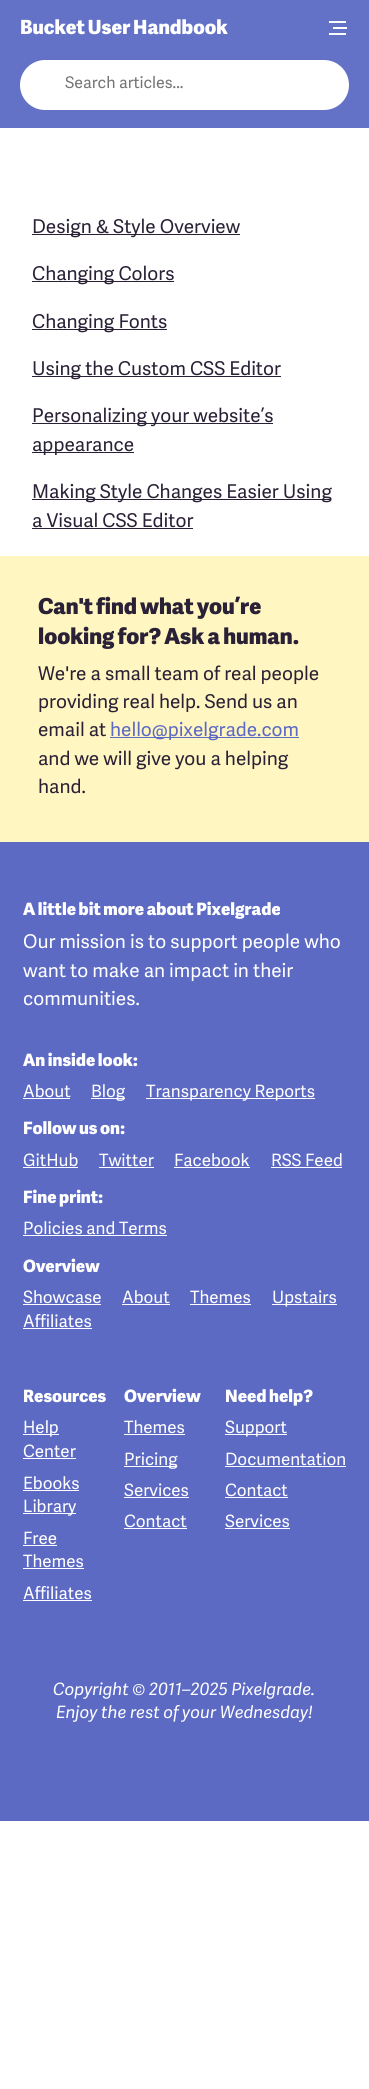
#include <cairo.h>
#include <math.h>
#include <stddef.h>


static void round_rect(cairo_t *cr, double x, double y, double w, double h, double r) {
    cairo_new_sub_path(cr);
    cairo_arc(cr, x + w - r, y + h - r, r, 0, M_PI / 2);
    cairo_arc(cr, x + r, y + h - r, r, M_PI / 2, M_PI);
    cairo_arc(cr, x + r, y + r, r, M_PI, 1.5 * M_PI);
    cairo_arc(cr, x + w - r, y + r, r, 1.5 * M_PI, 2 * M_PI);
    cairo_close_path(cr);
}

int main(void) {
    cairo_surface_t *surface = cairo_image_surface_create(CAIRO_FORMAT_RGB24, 369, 2089);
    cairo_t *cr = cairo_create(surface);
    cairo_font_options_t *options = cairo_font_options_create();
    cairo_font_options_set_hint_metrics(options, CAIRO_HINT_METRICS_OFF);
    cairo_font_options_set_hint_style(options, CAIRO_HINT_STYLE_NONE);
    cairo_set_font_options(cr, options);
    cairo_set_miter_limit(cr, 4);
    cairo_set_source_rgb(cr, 1, 1, 1);
    cairo_paint(cr);
    cairo_set_source_rgba(cr, 0.361, 0.416, 0.769, 0.95);
    cairo_rectangle(cr, 0, 0, 369, 128);
    cairo_fill(cr);
    cairo_select_font_face(cr, "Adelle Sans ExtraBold", CAIRO_FONT_SLANT_NORMAL, CAIRO_FONT_WEIGHT_NORMAL);
    cairo_set_font_size(cr, 19.5);
    cairo_set_source_rgb(cr, 1, 1, 1);
    cairo_move_to(cr, 20, 34);
    cairo_show_text(cr, "Bucket User Handbook");
    cairo_rectangle(cr, 329, 21, 17, 2);
    cairo_fill(cr);
    cairo_rectangle(cr, 333, 27, 14, 2);
    cairo_fill(cr);
    cairo_rectangle(cr, 329, 33, 17, 2);
    cairo_fill(cr);
    round_rect(cr, 20, 60, 329, 50, 25);
    cairo_fill(cr);
    cairo_select_font_face(cr, "Adelle Sans", CAIRO_FONT_SLANT_NORMAL, CAIRO_FONT_WEIGHT_NORMAL);
    cairo_set_font_size(cr, 16);
    cairo_set_source_rgb(cr, 0.459, 0.459, 0.459);
    cairo_move_to(cr, 65, 88);
    cairo_show_text(cr, "Search articles...");
    cairo_set_source_rgb(cr, 0.165, 0.129, 0.212);
    cairo_rectangle(cr, 32, 234, 208, 1);
    cairo_fill(cr);
    cairo_set_font_size(cr, 19);
    cairo_move_to(cr, 32, 233);
    cairo_show_text(cr, "Design & Style Overview");
    cairo_rectangle(cr, 32, 281, 142, 1);
    cairo_fill(cr);
    cairo_move_to(cr, 32, 280);
    cairo_show_text(cr, "Changing Colors");
    cairo_rectangle(cr, 32, 329, 135, 1);
    cairo_fill(cr);
    cairo_move_to(cr, 32, 328);
    cairo_show_text(cr, "Changing Fonts");
    cairo_rectangle(cr, 32, 376, 249, 1);
    cairo_fill(cr);
    cairo_move_to(cr, 32, 375);
    cairo_show_text(cr, "Using the Custom CSS Editor");
    cairo_rectangle(cr, 32, 423, 241, 1);
    cairo_fill(cr);
    cairo_move_to(cr, 32, 422);
    cairo_show_text(cr, "Personalizing your website’s");
    cairo_rectangle(cr, 32, 452, 102, 1);
    cairo_fill(cr);
    cairo_move_to(cr, 32, 451);
    cairo_show_text(cr, "appearance");
    cairo_rectangle(cr, 32, 499, 299, 1);
    cairo_fill(cr);
    cairo_move_to(cr, 32, 498);
    cairo_show_text(cr, "Making Style Changes Easier Using");
    cairo_move_to(cr, 32, 527);
    cairo_show_text(cr, "a Visual CSS Editor");
    cairo_rectangle(cr, 32, 528, 161, 1);
    cairo_fill(cr);
    cairo_set_source_rgb(cr, 1, 0.961, 0.757);
    cairo_rectangle(cr, 0, 556, 369, 286);
    cairo_fill(cr);
    cairo_select_font_face(cr, "Adelle Sans ExtraBold", CAIRO_FONT_SLANT_NORMAL, CAIRO_FONT_WEIGHT_NORMAL);
    cairo_set_font_size(cr, 22);
    cairo_set_source_rgb(cr, 0.165, 0.129, 0.212);
    cairo_move_to(cr, 38, 614);
    cairo_show_text(cr, "Can't find what you’re");
    cairo_move_to(cr, 38, 644);
    cairo_show_text(cr, "looking for? Ask a human.");
    cairo_select_font_face(cr, "Adelle Sans", CAIRO_FONT_SLANT_NORMAL, CAIRO_FONT_WEIGHT_NORMAL);
    cairo_set_font_size(cr, 19);
    cairo_move_to(cr, 38, 680);
    cairo_show_text(cr, "We're a small team of real people");
    cairo_move_to(cr, 38, 708);
    cairo_show_text(cr, "providing real help. Send us an");
    cairo_move_to(cr, 38, 736);
    cairo_show_text(cr, "email at");
    cairo_set_source_rgb(cr, 0.361, 0.416, 0.769);
    cairo_rectangle(cr, 110, 737, 189, 1);
    cairo_fill(cr);
    cairo_move_to(cr, 110, 736);
    cairo_show_text(cr, "hello@pixelgrade.com");
    cairo_set_source_rgb(cr, 0.165, 0.129, 0.212);
    cairo_move_to(cr, 38, 765);
    cairo_show_text(cr, "and we will give you a helping");
    cairo_move_to(cr, 38, 793);
    cairo_show_text(cr, "hand.");
    cairo_set_source_rgb(cr, 0.361, 0.416, 0.769);
    cairo_rectangle(cr, 0, 842, 369, 979);
    cairo_fill(cr);
    cairo_select_font_face(cr, "Adelle Sans ExtraBold", CAIRO_FONT_SLANT_NORMAL, CAIRO_FONT_WEIGHT_NORMAL);
    cairo_set_font_size(cr, 17);
    cairo_set_source_rgb(cr, 1, 1, 1);
    cairo_move_to(cr, 23, 915);
    cairo_show_text(cr, "A little bit more about Pixelgrade");
    cairo_select_font_face(cr, "Adelle Sans", CAIRO_FONT_SLANT_NORMAL, CAIRO_FONT_WEIGHT_NORMAL);
    cairo_set_font_size(cr, 19);
    cairo_move_to(cr, 23, 948);
    cairo_show_text(cr, "Our mission is to support people who");
    cairo_move_to(cr, 23, 977);
    cairo_show_text(cr, "want to make an impact in their");
    cairo_move_to(cr, 23, 1005);
    cairo_show_text(cr, "communities.");
    cairo_select_font_face(cr, "Adelle Sans ExtraBold", CAIRO_FONT_SLANT_NORMAL, CAIRO_FONT_WEIGHT_NORMAL);
    cairo_set_font_size(cr, 17);
    cairo_move_to(cr, 23, 1066);
    cairo_show_text(cr, "An inside look:");
    cairo_select_font_face(cr, "Adelle Sans", CAIRO_FONT_SLANT_NORMAL, CAIRO_FONT_WEIGHT_NORMAL);
    cairo_move_to(cr, 23, 1097);
    cairo_show_text(cr, "About");
    cairo_rectangle(cr, 23, 1098, 47, 1);
    cairo_fill(cr);
    cairo_rectangle(cr, 91, 1098, 34, 1);
    cairo_fill(cr);
    cairo_move_to(cr, 91, 1097);
    cairo_show_text(cr, "Blog");
    cairo_rectangle(cr, 146, 1098, 169, 1);
    cairo_fill(cr);
    cairo_move_to(cr, 146, 1097);
    cairo_show_text(cr, "Transparency Reports");
    cairo_select_font_face(cr, "Adelle Sans ExtraBold", CAIRO_FONT_SLANT_NORMAL, CAIRO_FONT_WEIGHT_NORMAL);
    cairo_move_to(cr, 23, 1134);
    cairo_show_text(cr, "Follow us on:");
    cairo_select_font_face(cr, "Adelle Sans", CAIRO_FONT_SLANT_NORMAL, CAIRO_FONT_WEIGHT_NORMAL);
    cairo_move_to(cr, 23, 1166);
    cairo_show_text(cr, "GitHub");
    cairo_rectangle(cr, 23, 1167, 55, 1);
    cairo_fill(cr);
    cairo_move_to(cr, 99, 1166);
    cairo_show_text(cr, "Twitter");
    cairo_rectangle(cr, 99, 1167, 55, 1);
    cairo_fill(cr);
    cairo_move_to(cr, 174, 1166);
    cairo_show_text(cr, "Facebook");
    cairo_rectangle(cr, 174, 1167, 76, 1);
    cairo_fill(cr);
    cairo_move_to(cr, 271, 1166);
    cairo_show_text(cr, "RSS Feed");
    cairo_rectangle(cr, 271, 1167, 71, 1);
    cairo_fill(cr);
    cairo_select_font_face(cr, "Adelle Sans ExtraBold", CAIRO_FONT_SLANT_NORMAL, CAIRO_FONT_WEIGHT_NORMAL);
    cairo_move_to(cr, 23, 1203);
    cairo_show_text(cr, "Fine print:");
    cairo_select_font_face(cr, "Adelle Sans", CAIRO_FONT_SLANT_NORMAL, CAIRO_FONT_WEIGHT_NORMAL);
    cairo_move_to(cr, 23, 1234);
    cairo_show_text(cr, "Policies and Terms");
    cairo_rectangle(cr, 23, 1235, 144, 1);
    cairo_fill(cr);
    cairo_select_font_face(cr, "Adelle Sans ExtraBold", CAIRO_FONT_SLANT_NORMAL, CAIRO_FONT_WEIGHT_NORMAL);
    cairo_move_to(cr, 23, 1272);
    cairo_show_text(cr, "Overview");
    cairo_select_font_face(cr, "Adelle Sans", CAIRO_FONT_SLANT_NORMAL, CAIRO_FONT_WEIGHT_NORMAL);
    cairo_move_to(cr, 23, 1303);
    cairo_show_text(cr, "Showcase");
    cairo_rectangle(cr, 23, 1304, 78, 1);
    cairo_fill(cr);
    cairo_move_to(cr, 122, 1303);
    cairo_show_text(cr, "About");
    cairo_rectangle(cr, 122, 1304, 48, 1);
    cairo_fill(cr);
    cairo_move_to(cr, 190, 1303);
    cairo_show_text(cr, "Themes");
    cairo_rectangle(cr, 190, 1304, 61, 1);
    cairo_fill(cr);
    cairo_rectangle(cr, 272, 1304, 65, 1);
    cairo_fill(cr);
    cairo_move_to(cr, 272, 1303);
    cairo_show_text(cr, "Upstairs");
    cairo_move_to(cr, 23, 1327);
    cairo_show_text(cr, "Affiliates");
    cairo_rectangle(cr, 23, 1328, 69, 1);
    cairo_fill(cr);
    cairo_select_font_face(cr, "Adelle Sans ExtraBold", CAIRO_FONT_SLANT_NORMAL, CAIRO_FONT_WEIGHT_NORMAL);
    cairo_move_to(cr, 23, 1402);
    cairo_show_text(cr, "Resources");
    cairo_rectangle(cr, 23, 1434, 36, 1);
    cairo_fill(cr);
    cairo_select_font_face(cr, "Adelle Sans", CAIRO_FONT_SLANT_NORMAL, CAIRO_FONT_WEIGHT_NORMAL);
    cairo_move_to(cr, 23, 1433);
    cairo_show_text(cr, "Help");
    cairo_move_to(cr, 23, 1457);
    cairo_show_text(cr, "Center");
    cairo_rectangle(cr, 23, 1458, 53, 1);
    cairo_fill(cr);
    cairo_move_to(cr, 23, 1489);
    cairo_show_text(cr, "Ebooks");
    cairo_rectangle(cr, 23, 1490, 56, 1);
    cairo_fill(cr);
    cairo_rectangle(cr, 23, 1513, 53, 1);
    cairo_fill(cr);
    cairo_move_to(cr, 23, 1512);
    cairo_show_text(cr, "Library");
    cairo_move_to(cr, 23, 1544);
    cairo_show_text(cr, "Free");
    cairo_rectangle(cr, 23, 1545, 34, 1);
    cairo_fill(cr);
    cairo_move_to(cr, 23, 1567);
    cairo_show_text(cr, "Themes");
    cairo_rectangle(cr, 23, 1568, 61, 1);
    cairo_fill(cr);
    cairo_move_to(cr, 23, 1599);
    cairo_show_text(cr, "Affiliates");
    cairo_rectangle(cr, 23, 1600, 69, 1);
    cairo_fill(cr);
    cairo_select_font_face(cr, "Adelle Sans ExtraBold", CAIRO_FONT_SLANT_NORMAL, CAIRO_FONT_WEIGHT_NORMAL);
    cairo_move_to(cr, 124, 1402);
    cairo_show_text(cr, "Overview");
    cairo_select_font_face(cr, "Adelle Sans", CAIRO_FONT_SLANT_NORMAL, CAIRO_FONT_WEIGHT_NORMAL);
    cairo_move_to(cr, 124, 1433);
    cairo_show_text(cr, "Themes");
    cairo_rectangle(cr, 124, 1434, 61, 1);
    cairo_fill(cr);
    cairo_rectangle(cr, 124, 1466, 53, 1);
    cairo_fill(cr);
    cairo_move_to(cr, 124, 1465);
    cairo_show_text(cr, "Pricing");
    cairo_move_to(cr, 124, 1496);
    cairo_show_text(cr, "Services");
    cairo_rectangle(cr, 124, 1497, 65, 1);
    cairo_fill(cr);
    cairo_move_to(cr, 124, 1527);
    cairo_show_text(cr, "Contact");
    cairo_rectangle(cr, 124, 1528, 63, 1);
    cairo_fill(cr);
    cairo_select_font_face(cr, "Adelle Sans ExtraBold", CAIRO_FONT_SLANT_NORMAL, CAIRO_FONT_WEIGHT_NORMAL);
    cairo_move_to(cr, 225, 1402);
    cairo_show_text(cr, "Need help?");
    cairo_rectangle(cr, 225, 1434, 62, 1);
    cairo_fill(cr);
    cairo_select_font_face(cr, "Adelle Sans", CAIRO_FONT_SLANT_NORMAL, CAIRO_FONT_WEIGHT_NORMAL);
    cairo_move_to(cr, 225, 1433);
    cairo_show_text(cr, "Support");
    cairo_move_to(cr, 225, 1465);
    cairo_show_text(cr, "Documentation");
    cairo_rectangle(cr, 225, 1466, 121, 1);
    cairo_fill(cr);
    cairo_move_to(cr, 225, 1496);
    cairo_show_text(cr, "Contact");
    cairo_rectangle(cr, 225, 1497, 63, 1);
    cairo_fill(cr);
    cairo_move_to(cr, 225, 1527);
    cairo_show_text(cr, "Services");
    cairo_rectangle(cr, 225, 1528, 65, 1);
    cairo_fill(cr);
    cairo_select_font_face(cr, "Adelle Sans", CAIRO_FONT_SLANT_ITALIC, CAIRO_FONT_WEIGHT_NORMAL);
    cairo_move_to(cr, 53, 1695);
    cairo_show_text(cr, "Copyright © 2011–2025 Pixelgrade.");
    cairo_move_to(cr, 56, 1718);
    cairo_show_text(cr, "Enjoy the rest of your Wednesday!");
    cairo_surface_write_to_png(surface, "page.png");
    cairo_font_options_destroy(options);
    cairo_destroy(cr);
    cairo_surface_destroy(surface);
    return 0;
}
